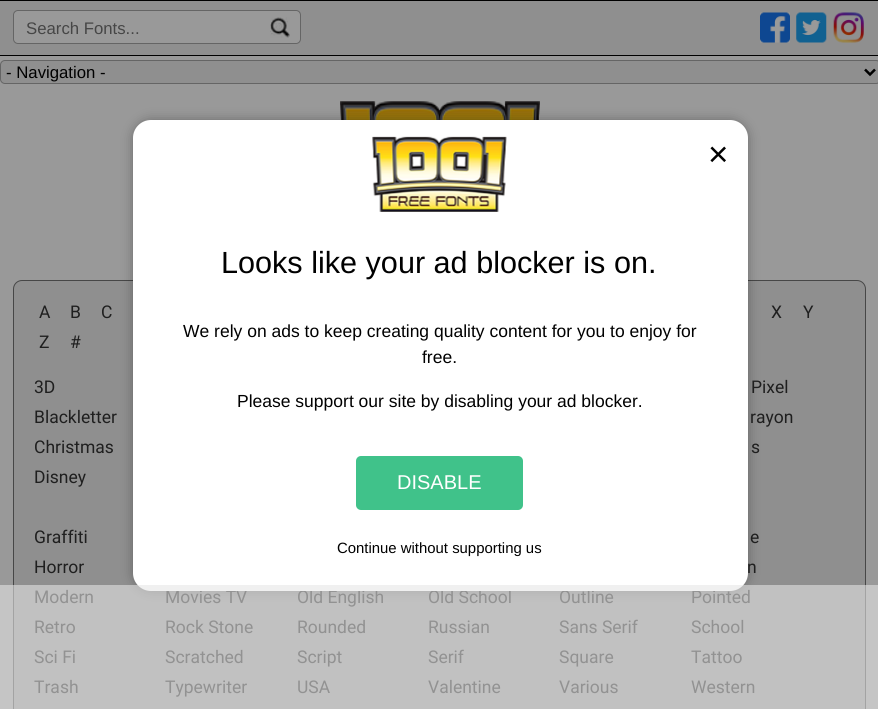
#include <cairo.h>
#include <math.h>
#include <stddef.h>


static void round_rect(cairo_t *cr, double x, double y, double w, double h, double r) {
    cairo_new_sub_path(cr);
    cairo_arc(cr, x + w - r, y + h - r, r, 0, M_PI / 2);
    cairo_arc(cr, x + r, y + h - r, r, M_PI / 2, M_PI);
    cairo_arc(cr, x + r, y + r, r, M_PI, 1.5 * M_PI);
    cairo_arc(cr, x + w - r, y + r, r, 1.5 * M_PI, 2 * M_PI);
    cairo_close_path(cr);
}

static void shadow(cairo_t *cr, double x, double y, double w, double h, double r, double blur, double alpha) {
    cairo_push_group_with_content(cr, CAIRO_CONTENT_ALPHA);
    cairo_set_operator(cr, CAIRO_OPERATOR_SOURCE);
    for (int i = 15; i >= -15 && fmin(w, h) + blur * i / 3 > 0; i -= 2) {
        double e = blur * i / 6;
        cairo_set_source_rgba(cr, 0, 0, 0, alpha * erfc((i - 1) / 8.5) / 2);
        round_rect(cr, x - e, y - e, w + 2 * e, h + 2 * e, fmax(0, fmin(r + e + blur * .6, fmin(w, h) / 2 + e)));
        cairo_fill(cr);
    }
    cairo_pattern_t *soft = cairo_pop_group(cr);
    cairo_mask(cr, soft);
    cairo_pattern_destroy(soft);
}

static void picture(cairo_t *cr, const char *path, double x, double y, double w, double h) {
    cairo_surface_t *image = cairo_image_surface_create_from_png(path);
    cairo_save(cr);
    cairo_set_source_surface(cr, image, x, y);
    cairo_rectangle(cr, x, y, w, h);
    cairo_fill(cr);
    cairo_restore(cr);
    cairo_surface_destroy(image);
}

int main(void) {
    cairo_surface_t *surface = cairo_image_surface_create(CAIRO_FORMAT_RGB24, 878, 709);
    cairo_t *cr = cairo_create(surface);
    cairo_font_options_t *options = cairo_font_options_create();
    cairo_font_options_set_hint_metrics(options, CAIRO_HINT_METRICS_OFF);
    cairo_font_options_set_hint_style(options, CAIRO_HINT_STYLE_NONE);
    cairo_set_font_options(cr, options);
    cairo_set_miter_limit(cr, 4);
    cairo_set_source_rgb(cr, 0.6, 0.6, 0.6);
    cairo_paint(cr);
    cairo_set_source_rgb(cr, 0.561, 0.561, 0.561);
    cairo_rectangle(cr, 0, 1, 878, 54);
    cairo_fill(cr);
    cairo_set_source_rgb(cr, 0, 0, 0);
    cairo_rectangle(cr, 0, 0, 878, 1);
    cairo_fill(cr);
    cairo_rectangle(cr, 0, 55, 878, 1);
    cairo_fill(cr);
    cairo_set_source_rgb(cr, 0.6, 0.6, 0.6);
    round_rect(cr, 13.5, 10.5, 287, 33, 4.5);
    cairo_fill_preserve(cr);
    cairo_set_source_rgb(cr, 0.396, 0.396, 0.396);
    cairo_set_line_width(cr, 1);
    cairo_stroke(cr);
    cairo_select_font_face(cr, "Liberation Sans", CAIRO_FONT_SLANT_NORMAL, CAIRO_FONT_WEIGHT_NORMAL);
    cairo_set_font_size(cr, 16.75);
    cairo_set_source_rgb(cr, 0.275, 0.275, 0.275);
    cairo_move_to(cr, 26, 34);
    cairo_show_text(cr, "Search Fonts...");
    picture(cr, "img1.png", 270, 17, 20, 21);
    picture(cr, "img2.png", 760, 12, 30, 31);
    picture(cr, "img3.png", 796, 12, 31, 31);
    picture(cr, "img4.png", 833, 12, 31, 31);
    cairo_set_source_rgb(cr, 0.561, 0.561, 0.561);
    round_rect(cr, 0.5, 60.5, 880, 23, 4.5);
    cairo_fill_preserve(cr);
    cairo_set_source_rgb(cr, 0.396, 0.396, 0.396);
    cairo_stroke(cr);
    cairo_new_path(cr);
    cairo_move_to(cr, 865, 69.5);
    cairo_line_to(cr, 870, 74.5);
    cairo_line_to(cr, 875, 69.5);
    cairo_set_source_rgb(cr, 0, 0, 0);
    cairo_set_line_width(cr, 2.5);
    cairo_stroke(cr);
    cairo_move_to(cr, 6, 78);
    cairo_show_text(cr, "- Navigation -");
    picture(cr, "img6.png", 340, 101, 200, 19);
    cairo_set_source_rgb(cr, 0.561, 0.561, 0.561);
    round_rect(cr, 13.5, 280.5, 852, 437, 8.5);
    cairo_fill_preserve(cr);
    cairo_set_source_rgb(cr, 0.278, 0.278, 0.278);
    cairo_set_line_width(cr, 1);
    cairo_stroke(cr);
    cairo_set_source_rgb(cr, 0, 0, 0);
    shadow(cr, 133, 120, 615, 471, 18, 6, 0.3);
    cairo_select_font_face(cr, "Roboto", CAIRO_FONT_SLANT_NORMAL, CAIRO_FONT_WEIGHT_NORMAL);
    cairo_set_font_size(cr, 17.5);
    cairo_set_source_rgb(cr, 0.122, 0.122, 0.122);
    cairo_move_to(cr, 165, 603);
    cairo_show_text(cr, "Movies TV");
    cairo_move_to(cr, 297, 603);
    cairo_show_text(cr, "Old English");
    cairo_move_to(cr, 428, 603);
    cairo_show_text(cr, "Old School");
    cairo_move_to(cr, 559, 603);
    cairo_show_text(cr, "Outline");
    cairo_move_to(cr, 691, 603);
    cairo_show_text(cr, "Pointed");
    cairo_set_source_rgb(cr, 1, 1, 1);
    round_rect(cr, 133, 120, 615, 471, 18);
    cairo_fill(cr);
    picture(cr, "img5.png", 372, 136, 135, 76);
    cairo_select_font_face(cr, "Liberation Sans", CAIRO_FONT_SLANT_NORMAL, CAIRO_FONT_WEIGHT_NORMAL);
    cairo_set_font_size(cr, 35);
    cairo_set_source_rgb(cr, 0, 0, 0);
    cairo_move_to(cr, 708, 166);
    cairo_show_text(cr, "×");
    cairo_set_font_size(cr, 30.6);
    cairo_move_to(cr, 221, 273);
    cairo_show_text(cr, "Looks like your ad blocker is on.");
    cairo_set_font_size(cr, 17.5);
    cairo_move_to(cr, 183, 337);
    cairo_show_text(cr, "We rely on ads to keep creating quality content for you to enjoy for");
    cairo_move_to(cr, 422, 363);
    cairo_show_text(cr, "free.");
    cairo_move_to(cr, 237, 407);
    cairo_show_text(cr, "Please support our site by disabling your ad blocker.");
    cairo_set_source_rgb(cr, 0.251, 0.761, 0.541);
    round_rect(cr, 356, 456, 167, 54, 5);
    cairo_fill(cr);
    cairo_set_font_size(cr, 20);
    cairo_set_source_rgb(cr, 1, 1, 1);
    cairo_move_to(cr, 397, 489);
    cairo_show_text(cr, "DISABLE");
    cairo_set_font_size(cr, 14.9);
    cairo_set_source_rgb(cr, 0, 0, 0);
    cairo_move_to(cr, 337, 553);
    cairo_show_text(cr, "Continue without supporting us");
    cairo_select_font_face(cr, "Roboto", CAIRO_FONT_SLANT_NORMAL, CAIRO_FONT_WEIGHT_NORMAL);
    cairo_set_font_size(cr, 17.5);
    cairo_set_source_rgb(cr, 0.122, 0.122, 0.122);
    cairo_move_to(cr, 39, 318);
    cairo_show_text(cr, "A");
    cairo_move_to(cr, 70, 318);
    cairo_show_text(cr, "B");
    cairo_move_to(cr, 101, 318);
    cairo_show_text(cr, "C");
    cairo_move_to(cr, 771, 318);
    cairo_show_text(cr, "X");
    cairo_move_to(cr, 803, 318);
    cairo_show_text(cr, "Y");
    cairo_move_to(cr, 39, 348);
    cairo_show_text(cr, "Z");
    cairo_move_to(cr, 70, 348);
    cairo_show_text(cr, "#");
    cairo_move_to(cr, 34, 393);
    cairo_show_text(cr, "3D");
    cairo_move_to(cr, 751, 393);
    cairo_show_text(cr, "Pixel");
    cairo_move_to(cr, 34, 423);
    cairo_show_text(cr, "Blackletter");
    cairo_move_to(cr, 750, 423);
    cairo_show_text(cr, "rayon");
    cairo_move_to(cr, 34, 453);
    cairo_show_text(cr, "Christmas");
    cairo_move_to(cr, 751, 453);
    cairo_show_text(cr, "s");
    cairo_move_to(cr, 34, 483);
    cairo_show_text(cr, "Disney");
    cairo_move_to(cr, 34, 543);
    cairo_show_text(cr, "Graffiti");
    cairo_move_to(cr, 750, 543);
    cairo_show_text(cr, "e");
    cairo_move_to(cr, 34, 573);
    cairo_show_text(cr, "Horror");
    cairo_move_to(cr, 747, 573);
    cairo_show_text(cr, "n");
    cairo_move_to(cr, 34, 603);
    cairo_show_text(cr, "Modern");
    cairo_move_to(cr, 34, 633);
    cairo_show_text(cr, "Retro");
    cairo_move_to(cr, 165, 633);
    cairo_show_text(cr, "Rock Stone");
    cairo_move_to(cr, 297, 633);
    cairo_show_text(cr, "Rounded");
    cairo_move_to(cr, 428, 633);
    cairo_show_text(cr, "Russian");
    cairo_move_to(cr, 559, 633);
    cairo_show_text(cr, "Sans Serif");
    cairo_move_to(cr, 691, 633);
    cairo_show_text(cr, "School");
    cairo_move_to(cr, 34, 663);
    cairo_show_text(cr, "Sci Fi");
    cairo_move_to(cr, 165, 663);
    cairo_show_text(cr, "Scratched");
    cairo_move_to(cr, 297, 663);
    cairo_show_text(cr, "Script");
    cairo_move_to(cr, 428, 663);
    cairo_show_text(cr, "Serif");
    cairo_move_to(cr, 559, 663);
    cairo_show_text(cr, "Square");
    cairo_move_to(cr, 691, 663);
    cairo_show_text(cr, "Tattoo");
    cairo_move_to(cr, 34, 693);
    cairo_show_text(cr, "Trash");
    cairo_move_to(cr, 165, 693);
    cairo_show_text(cr, "Typewriter");
    cairo_move_to(cr, 297, 693);
    cairo_show_text(cr, "USA");
    cairo_move_to(cr, 428, 693);
    cairo_show_text(cr, "Valentine");
    cairo_move_to(cr, 559, 693);
    cairo_show_text(cr, "Various");
    cairo_move_to(cr, 691, 693);
    cairo_show_text(cr, "Western");
    cairo_set_source_rgba(cr, 0.902, 0.902, 0.902, 0.58);
    cairo_rectangle(cr, 0, 585, 878, 124);
    cairo_fill(cr);
    cairo_surface_write_to_png(surface, "page.png");
    cairo_font_options_destroy(options);
    cairo_destroy(cr);
    cairo_surface_destroy(surface);
    return 0;
}
